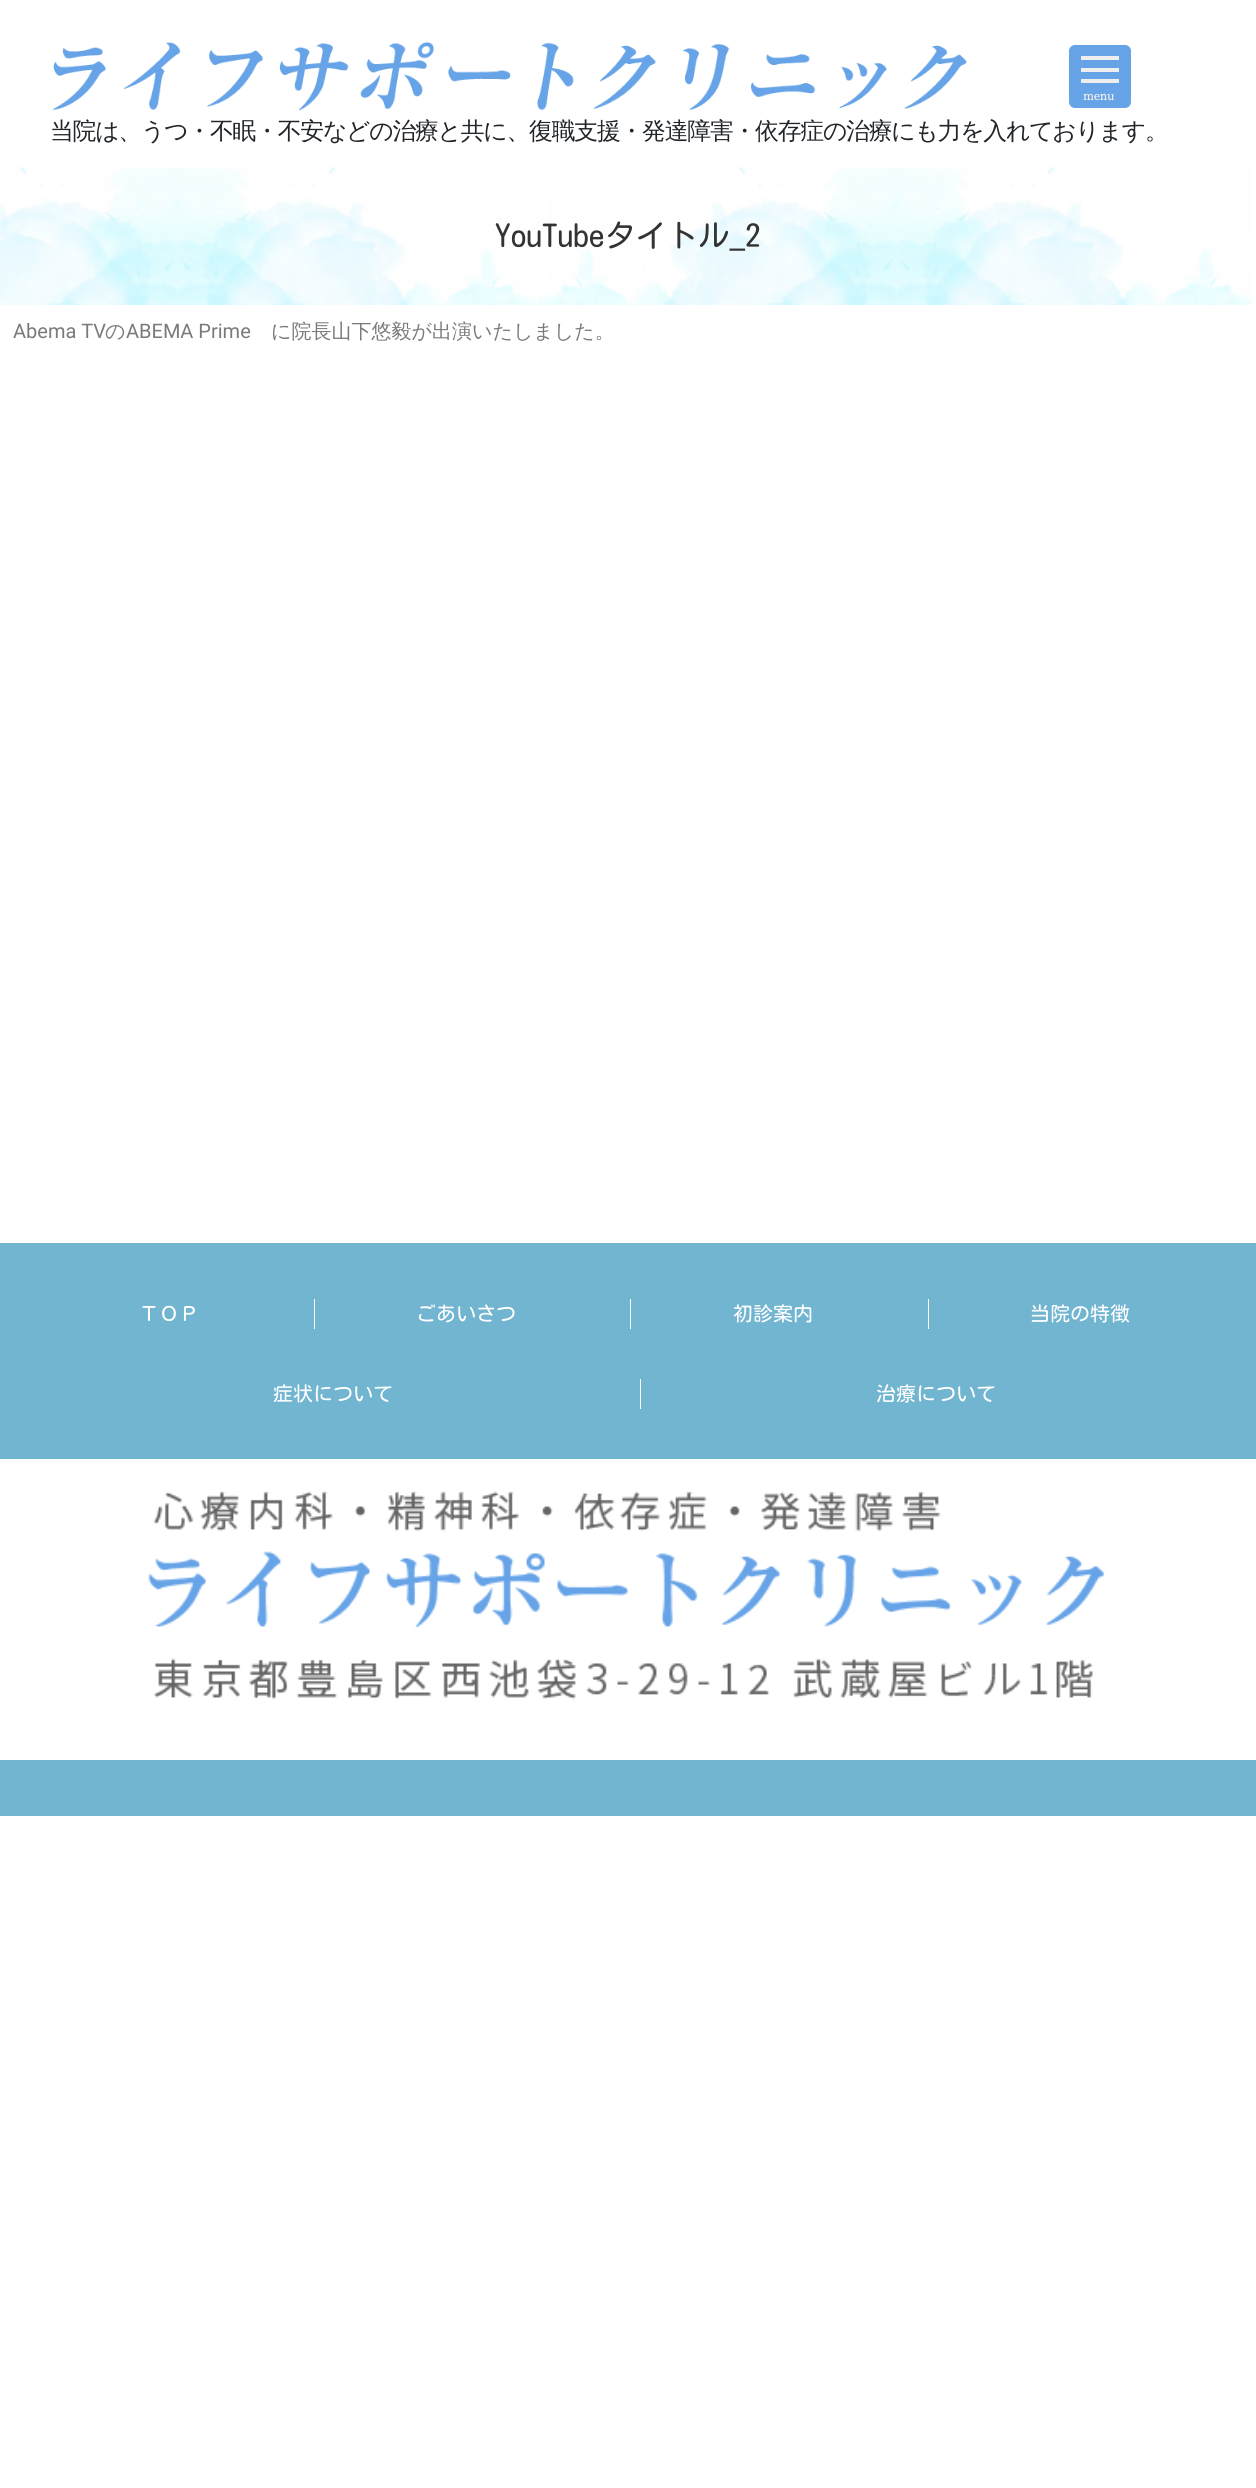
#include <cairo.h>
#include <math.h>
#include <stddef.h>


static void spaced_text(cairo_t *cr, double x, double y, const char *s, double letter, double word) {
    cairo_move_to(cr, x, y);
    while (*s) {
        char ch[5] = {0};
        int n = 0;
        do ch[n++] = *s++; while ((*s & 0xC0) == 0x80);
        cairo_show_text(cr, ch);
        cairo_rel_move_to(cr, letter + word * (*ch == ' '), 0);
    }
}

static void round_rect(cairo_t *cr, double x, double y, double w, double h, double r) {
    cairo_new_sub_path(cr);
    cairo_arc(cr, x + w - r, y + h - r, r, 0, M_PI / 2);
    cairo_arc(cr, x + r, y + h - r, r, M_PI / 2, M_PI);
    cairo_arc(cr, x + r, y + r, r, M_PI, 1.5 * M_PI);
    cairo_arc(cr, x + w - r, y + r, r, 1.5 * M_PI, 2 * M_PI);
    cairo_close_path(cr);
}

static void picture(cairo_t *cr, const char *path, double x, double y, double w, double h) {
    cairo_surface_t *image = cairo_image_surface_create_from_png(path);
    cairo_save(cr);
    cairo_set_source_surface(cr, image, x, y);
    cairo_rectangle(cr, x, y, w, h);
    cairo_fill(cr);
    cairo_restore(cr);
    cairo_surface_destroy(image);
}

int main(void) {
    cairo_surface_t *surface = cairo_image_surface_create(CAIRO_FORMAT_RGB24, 1256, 2488);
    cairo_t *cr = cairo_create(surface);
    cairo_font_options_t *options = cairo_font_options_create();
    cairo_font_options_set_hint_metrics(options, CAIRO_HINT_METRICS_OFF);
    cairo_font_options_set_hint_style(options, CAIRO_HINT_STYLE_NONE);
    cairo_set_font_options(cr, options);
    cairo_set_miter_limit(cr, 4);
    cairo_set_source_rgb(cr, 1, 1, 1);
    cairo_paint(cr);
    cairo_set_source_rgb(cr, 0.4, 0.639, 0.906);
    round_rect(cr, 1069, 45, 62, 63, 6);
    cairo_fill(cr);
    cairo_set_source_rgb(cr, 0.933, 0.933, 0.933);
    cairo_rectangle(cr, 1081, 56, 38, 4);
    cairo_fill(cr);
    cairo_rectangle(cr, 1081, 68, 38, 4);
    cairo_fill(cr);
    cairo_rectangle(cr, 1081, 79, 38, 4);
    cairo_fill(cr);
    cairo_select_font_face(cr, "Noto Serif JP", CAIRO_FONT_SLANT_NORMAL, CAIRO_FONT_WEIGHT_BOLD);
    cairo_set_font_size(cr, 11);
    cairo_move_to(cr, 1083, 100);
    cairo_show_text(cr, "menu");
    picture(cr, "img1.png", 53, 42, 914, 69);
    cairo_select_font_face(cr, "WenQuanYi Zen Hei Medium", CAIRO_FONT_SLANT_NORMAL, CAIRO_FONT_WEIGHT_NORMAL);
    cairo_set_font_size(cr, 23.85);
    cairo_set_source_rgb(cr, 0.129, 0.145, 0.161);
    spaced_text(cr, 50, 139, "当院は、うつ・不眠・不安などの治療と共に、復職支援・発達障害・依存症の治療にも力を入れております。", -1.25, 0);
    picture(cr, "img2.png", 0, 167, 1253, 138);
    cairo_select_font_face(cr, "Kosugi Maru", CAIRO_FONT_SLANT_NORMAL, CAIRO_FONT_WEIGHT_NORMAL);
    cairo_set_font_size(cr, 31.25);
    cairo_set_source_rgb(cr, 0.2, 0.2, 0.2);
    cairo_move_to(cr, 495, 247);
    cairo_show_text(cr, "YouTubeタイトル_2");
    cairo_select_font_face(cr, "Roboto", CAIRO_FONT_SLANT_NORMAL, CAIRO_FONT_WEIGHT_NORMAL);
    cairo_set_font_size(cr, 20);
    cairo_set_source_rgb(cr, 0.478, 0.478, 0.478);
    cairo_move_to(cr, 13, 338);
    cairo_show_text(cr, "Abema TV");
    cairo_select_font_face(cr, "WenQuanYi Zen Hei Medium", CAIRO_FONT_SLANT_NORMAL, CAIRO_FONT_WEIGHT_NORMAL);
    cairo_move_to(cr, 105, 338);
    cairo_show_text(cr, "の");
    cairo_select_font_face(cr, "Roboto", CAIRO_FONT_SLANT_NORMAL, CAIRO_FONT_WEIGHT_NORMAL);
    cairo_move_to(cr, 126, 338);
    cairo_show_text(cr, "ABEMA Prime");
    cairo_select_font_face(cr, "WenQuanYi Zen Hei Medium", CAIRO_FONT_SLANT_NORMAL, CAIRO_FONT_WEIGHT_NORMAL);
    cairo_move_to(cr, 271, 338);
    cairo_show_text(cr, "に院長山下悠毅が出演いたしました。");
    cairo_set_source_rgb(cr, 0.447, 0.71, 0.82);
    cairo_rectangle(cr, 0, 1243, 1256, 216);
    cairo_fill(cr);
    cairo_rectangle(cr, 0, 1760, 1256, 56);
    cairo_fill(cr);
    cairo_select_font_face(cr, "Kosugi Maru", CAIRO_FONT_SLANT_NORMAL, CAIRO_FONT_WEIGHT_NORMAL);
    cairo_set_source_rgb(cr, 1, 1, 1);
    cairo_move_to(cr, 139, 1321);
    cairo_show_text(cr, "ＴＯＰ");
    cairo_rectangle(cr, 314, 1299, 1, 30);
    cairo_fill(cr);
    cairo_move_to(cr, 416, 1321);
    cairo_show_text(cr, "ごあいさつ");
    cairo_rectangle(cr, 630, 1299, 1, 30);
    cairo_fill(cr);
    cairo_move_to(cr, 733, 1321);
    cairo_show_text(cr, "初診案内");
    cairo_rectangle(cr, 928, 1299, 1, 30);
    cairo_fill(cr);
    cairo_move_to(cr, 1030, 1321);
    cairo_show_text(cr, "当院の特徴");
    cairo_move_to(cr, 273, 1401);
    cairo_show_text(cr, "症状について");
    cairo_rectangle(cr, 640, 1379, 1, 30);
    cairo_fill(cr);
    cairo_move_to(cr, 876, 1401);
    cairo_show_text(cr, "治療について");
    picture(cr, "img3.png", 148, 1491, 957, 209);
    cairo_surface_write_to_png(surface, "page.png");
    cairo_font_options_destroy(options);
    cairo_destroy(cr);
    cairo_surface_destroy(surface);
    return 0;
}
